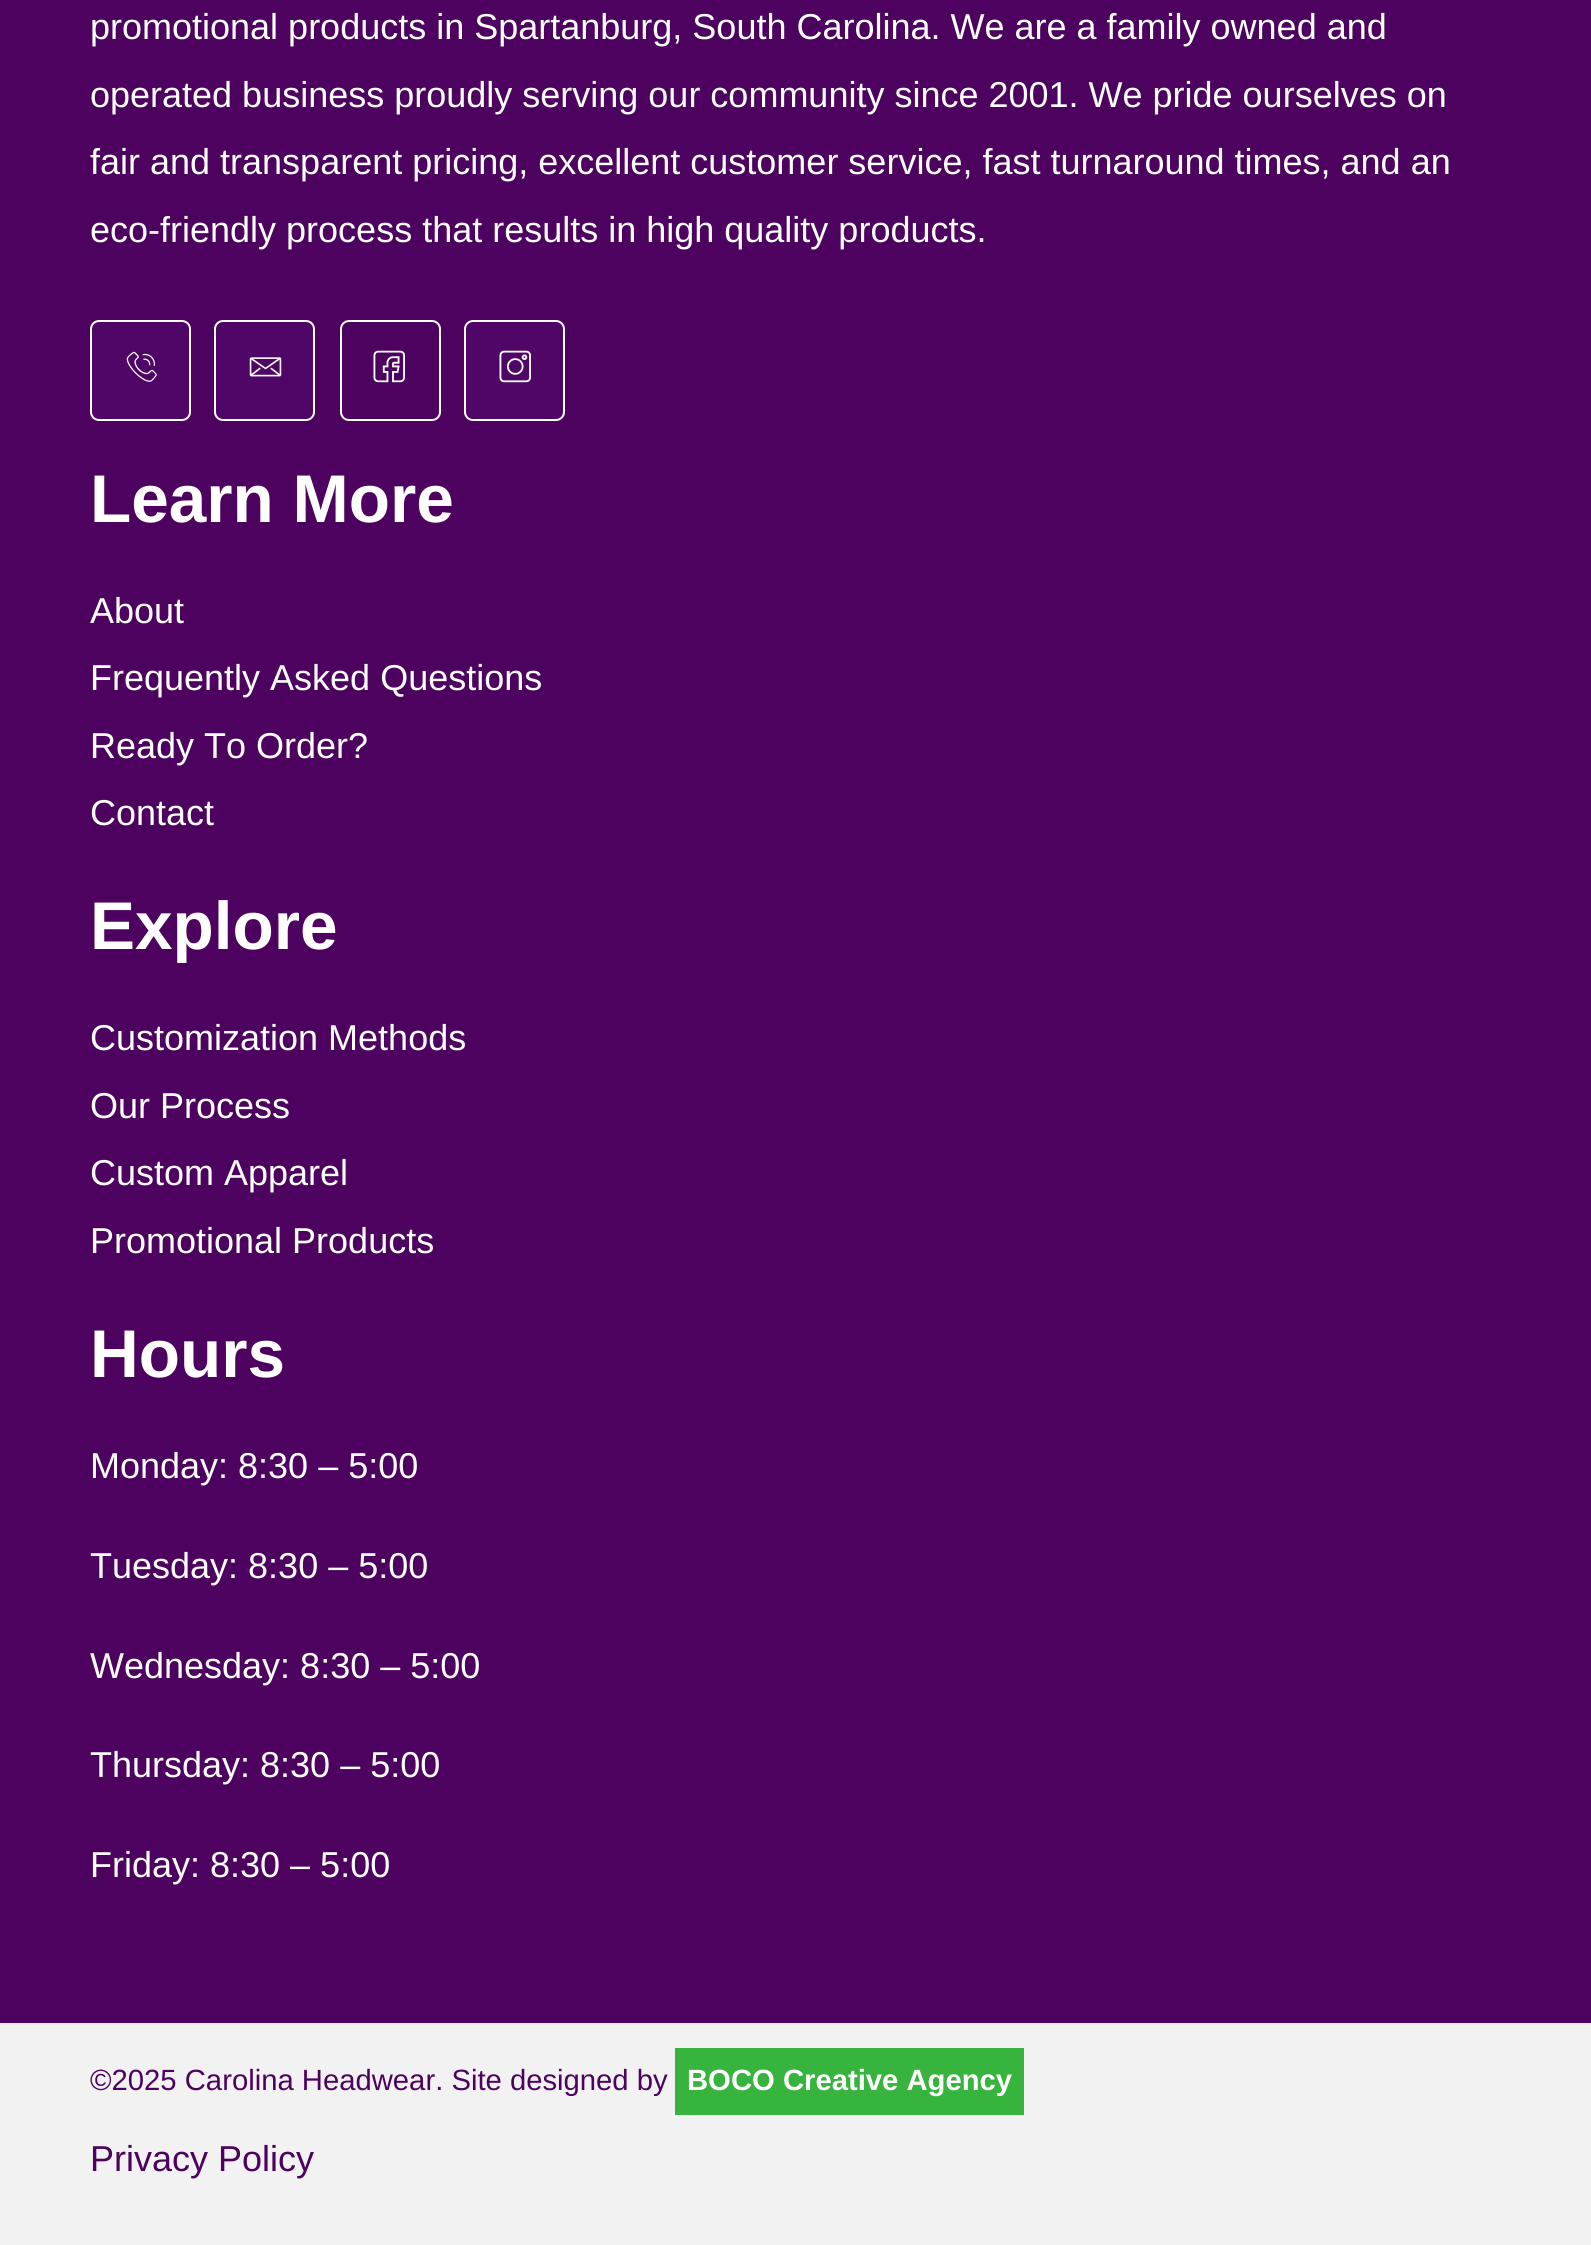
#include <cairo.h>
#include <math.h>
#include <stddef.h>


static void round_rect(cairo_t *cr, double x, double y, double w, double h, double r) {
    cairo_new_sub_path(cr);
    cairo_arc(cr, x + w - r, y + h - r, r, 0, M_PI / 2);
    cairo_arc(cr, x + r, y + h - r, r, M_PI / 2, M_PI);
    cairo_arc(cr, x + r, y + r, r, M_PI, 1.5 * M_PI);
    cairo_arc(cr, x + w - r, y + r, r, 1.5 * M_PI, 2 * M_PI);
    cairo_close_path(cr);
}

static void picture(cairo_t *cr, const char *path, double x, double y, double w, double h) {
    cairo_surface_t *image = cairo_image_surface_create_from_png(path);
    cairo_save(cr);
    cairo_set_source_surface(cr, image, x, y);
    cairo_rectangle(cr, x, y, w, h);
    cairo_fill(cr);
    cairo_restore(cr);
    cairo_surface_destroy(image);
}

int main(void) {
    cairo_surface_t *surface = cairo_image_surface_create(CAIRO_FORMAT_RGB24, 1591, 2245);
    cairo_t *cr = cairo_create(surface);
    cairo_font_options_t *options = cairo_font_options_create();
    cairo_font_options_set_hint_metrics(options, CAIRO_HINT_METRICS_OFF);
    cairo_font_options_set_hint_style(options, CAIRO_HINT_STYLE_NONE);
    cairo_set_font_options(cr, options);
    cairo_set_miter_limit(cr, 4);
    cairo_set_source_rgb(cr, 0.302, 0.008, 0.373);
    cairo_paint(cr);
    cairo_select_font_face(cr, "Liberation Sans", CAIRO_FONT_SLANT_NORMAL, CAIRO_FONT_WEIGHT_NORMAL);
    cairo_set_font_size(cr, 36);
    cairo_set_source_rgb(cr, 1, 1, 1);
    cairo_move_to(cr, 90, 39);
    cairo_show_text(cr, "promotional products in Spartanburg, South Carolina. We are a family owned and");
    cairo_move_to(cr, 90, 107);
    cairo_show_text(cr, "operated business proudly serving our community since 2001. We pride ourselves on");
    cairo_move_to(cr, 90, 174);
    cairo_show_text(cr, "fair and transparent pricing, excellent customer service, fast turnaround times, and an");
    cairo_move_to(cr, 90, 242);
    cairo_show_text(cr, "eco-friendly process that results in high quality products.");
    cairo_set_source_rgb(cr, 0.314, 0.027, 0.4);
    round_rect(cr, 91, 321, 99, 99, 8);
    cairo_fill_preserve(cr);
    cairo_set_source_rgb(cr, 1, 1, 1);
    cairo_stroke(cr);
    picture(cr, "img1.png", 126, 351, 31, 31);
    cairo_set_source_rgb(cr, 0.314, 0.027, 0.4);
    round_rect(cr, 215, 321, 99, 99, 8);
    cairo_fill_preserve(cr);
    cairo_set_source_rgb(cr, 1, 1, 1);
    cairo_stroke(cr);
    picture(cr, "img2.png", 249, 357, 33, 20);
    round_rect(cr, 341, 321, 99, 99, 8);
    cairo_stroke(cr);
    picture(cr, "img3.png", 373, 350, 32, 33);
    cairo_set_source_rgb(cr, 0.314, 0.027, 0.4);
    round_rect(cr, 465, 321, 99, 99, 8);
    cairo_fill_preserve(cr);
    cairo_set_source_rgb(cr, 1, 1, 1);
    cairo_stroke(cr);
    picture(cr, "img4.png", 499, 350, 32, 33);
    cairo_select_font_face(cr, "Liberation Sans", CAIRO_FONT_SLANT_NORMAL, CAIRO_FONT_WEIGHT_BOLD);
    cairo_set_font_size(cr, 67.5);
    cairo_move_to(cr, 90, 522);
    cairo_show_text(cr, "Learn More");
    cairo_select_font_face(cr, "Liberation Sans", CAIRO_FONT_SLANT_NORMAL, CAIRO_FONT_WEIGHT_NORMAL);
    cairo_set_font_size(cr, 36);
    cairo_move_to(cr, 90, 623);
    cairo_show_text(cr, "About");
    cairo_move_to(cr, 90, 690);
    cairo_show_text(cr, "Frequently Asked Questions");
    cairo_move_to(cr, 90, 758);
    cairo_show_text(cr, "Ready To Order?");
    cairo_move_to(cr, 90, 825);
    cairo_show_text(cr, "Contact");
    cairo_select_font_face(cr, "Liberation Sans", CAIRO_FONT_SLANT_NORMAL, CAIRO_FONT_WEIGHT_BOLD);
    cairo_set_font_size(cr, 67.5);
    cairo_move_to(cr, 90, 949);
    cairo_show_text(cr, "Explore");
    cairo_select_font_face(cr, "Liberation Sans", CAIRO_FONT_SLANT_NORMAL, CAIRO_FONT_WEIGHT_NORMAL);
    cairo_set_font_size(cr, 36);
    cairo_move_to(cr, 90, 1050);
    cairo_show_text(cr, "Customization Methods");
    cairo_move_to(cr, 90, 1118);
    cairo_show_text(cr, "Our Process");
    cairo_move_to(cr, 90, 1185);
    cairo_show_text(cr, "Custom Apparel");
    cairo_move_to(cr, 90, 1253);
    cairo_show_text(cr, "Promotional Products");
    cairo_select_font_face(cr, "Liberation Sans", CAIRO_FONT_SLANT_NORMAL, CAIRO_FONT_WEIGHT_BOLD);
    cairo_set_font_size(cr, 67.5);
    cairo_move_to(cr, 90, 1377);
    cairo_show_text(cr, "Hours");
    cairo_select_font_face(cr, "Liberation Sans", CAIRO_FONT_SLANT_NORMAL, CAIRO_FONT_WEIGHT_NORMAL);
    cairo_set_font_size(cr, 36);
    cairo_move_to(cr, 90, 1478);
    cairo_show_text(cr, "Monday: 8:30 – 5:00");
    cairo_move_to(cr, 90, 1578);
    cairo_show_text(cr, "Tuesday: 8:30 – 5:00");
    cairo_move_to(cr, 90, 1678);
    cairo_show_text(cr, "Wednesday: 8:30 – 5:00");
    cairo_move_to(cr, 90, 1777);
    cairo_show_text(cr, "Thursday: 8:30 – 5:00");
    cairo_move_to(cr, 90, 1877);
    cairo_show_text(cr, "Friday: 8:30 – 5:00");
    cairo_set_source_rgb(cr, 0.949, 0.949, 0.949);
    cairo_rectangle(cr, 0, 2025, 1591, 220);
    cairo_fill(cr);
    cairo_set_source_rgb(cr, 0.925, 0.914, 0.945);
    cairo_rectangle(cr, 0, 2023, 1591, 2);
    cairo_fill(cr);
    cairo_set_font_size(cr, 29.25);
    cairo_set_source_rgb(cr, 0.302, 0.008, 0.373);
    cairo_move_to(cr, 90, 2090);
    cairo_show_text(cr, "©2025 Carolina Headwear. Site designed by");
    cairo_set_source_rgb(cr, 0.216, 0.706, 0.239);
    cairo_rectangle(cr, 675, 2048, 349, 67);
    cairo_fill(cr);
    cairo_select_font_face(cr, "Liberation Sans", CAIRO_FONT_SLANT_NORMAL, CAIRO_FONT_WEIGHT_BOLD);
    cairo_set_source_rgb(cr, 1, 1, 1);
    cairo_move_to(cr, 687, 2090);
    cairo_show_text(cr, "BOCO Creative Agency");
    cairo_select_font_face(cr, "Liberation Sans", CAIRO_FONT_SLANT_NORMAL, CAIRO_FONT_WEIGHT_NORMAL);
    cairo_set_font_size(cr, 36);
    cairo_set_source_rgb(cr, 0.302, 0.008, 0.373);
    cairo_move_to(cr, 90, 2171);
    cairo_show_text(cr, "Privacy Policy");
    cairo_surface_write_to_png(surface, "page.png");
    cairo_font_options_destroy(options);
    cairo_destroy(cr);
    cairo_surface_destroy(surface);
    return 0;
}
